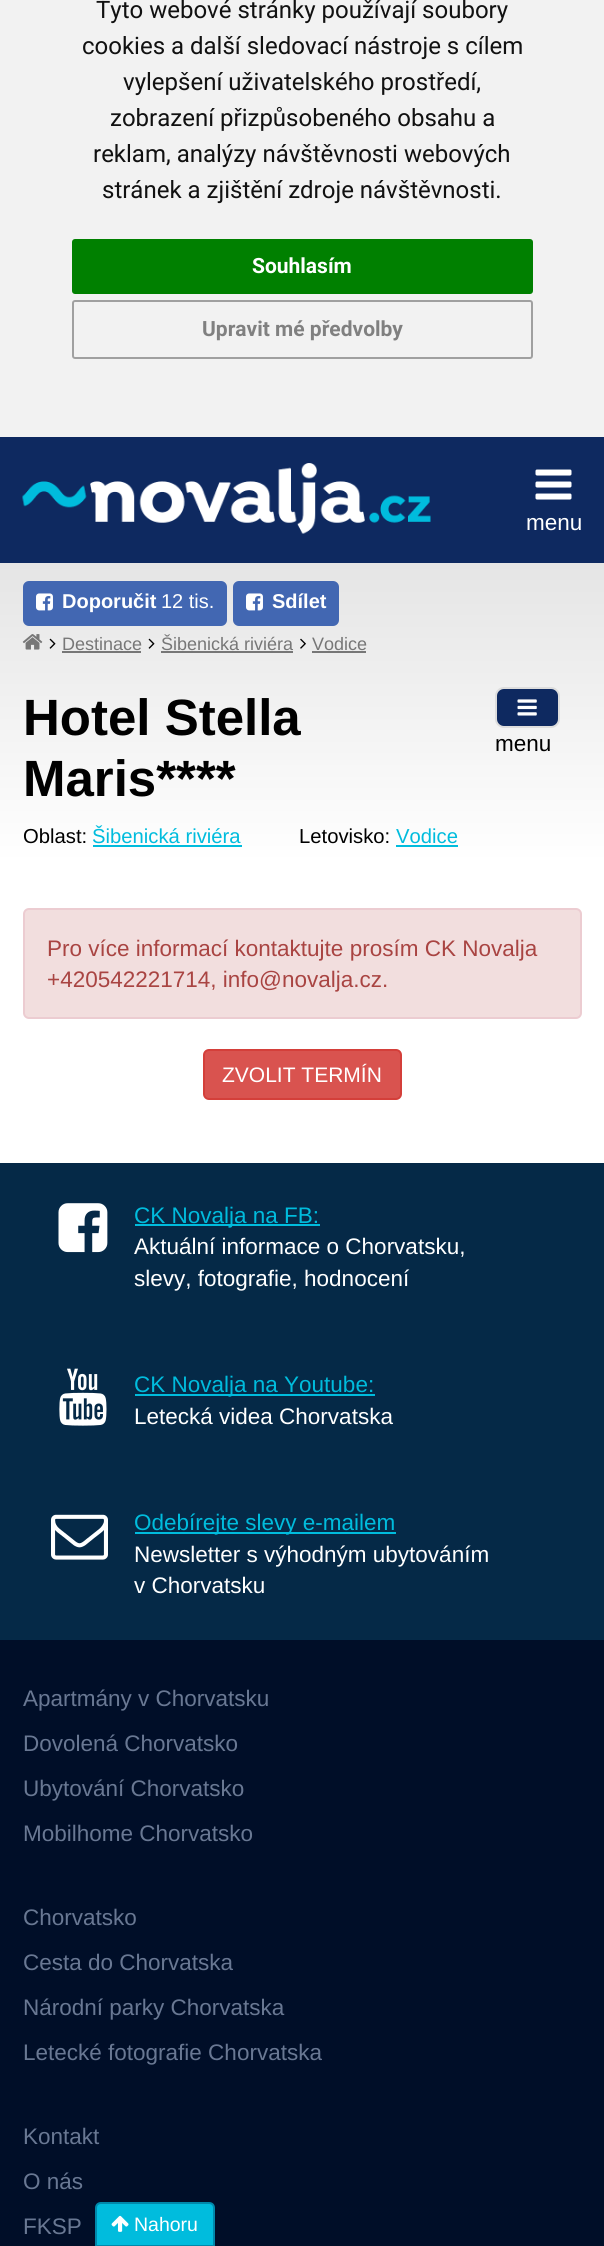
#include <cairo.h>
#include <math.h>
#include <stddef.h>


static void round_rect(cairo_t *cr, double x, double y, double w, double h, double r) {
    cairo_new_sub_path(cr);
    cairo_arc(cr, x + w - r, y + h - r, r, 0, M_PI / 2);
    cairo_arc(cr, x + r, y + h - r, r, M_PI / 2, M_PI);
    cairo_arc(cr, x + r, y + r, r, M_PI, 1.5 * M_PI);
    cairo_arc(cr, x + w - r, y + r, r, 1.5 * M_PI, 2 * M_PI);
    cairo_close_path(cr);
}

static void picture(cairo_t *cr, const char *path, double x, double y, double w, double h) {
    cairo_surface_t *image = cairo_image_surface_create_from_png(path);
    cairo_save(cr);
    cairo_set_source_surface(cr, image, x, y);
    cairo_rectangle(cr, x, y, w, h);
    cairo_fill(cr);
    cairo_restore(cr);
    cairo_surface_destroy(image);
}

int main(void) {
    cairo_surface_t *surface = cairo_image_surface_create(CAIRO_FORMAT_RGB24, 604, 2246);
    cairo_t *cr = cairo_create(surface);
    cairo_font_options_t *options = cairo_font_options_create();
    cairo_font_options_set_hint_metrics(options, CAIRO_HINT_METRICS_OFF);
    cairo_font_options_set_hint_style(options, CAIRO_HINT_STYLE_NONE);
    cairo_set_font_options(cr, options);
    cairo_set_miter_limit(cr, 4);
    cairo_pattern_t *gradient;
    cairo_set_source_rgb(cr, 0.055, 0.161, 0.376);
    cairo_paint(cr);
    cairo_set_source_rgb(cr, 0.949, 0.949, 0.949);
    cairo_rectangle(cr, 0, 0, 604, 437);
    cairo_fill(cr);
    cairo_select_font_face(cr, "Roboto", CAIRO_FONT_SLANT_NORMAL, CAIRO_FONT_WEIGHT_NORMAL);
    cairo_set_font_size(cr, 24);
    cairo_set_source_rgb(cr, 0.067, 0.067, 0.067);
    cairo_move_to(cr, 96, 18);
    cairo_show_text(cr, "Tyto webové stránky používají soubory");
    cairo_move_to(cr, 82, 54);
    cairo_show_text(cr, "cookies a další sledovací nástroje s cílem");
    cairo_move_to(cr, 123, 90);
    cairo_show_text(cr, "vylepšení uživatelského prostředí,");
    cairo_move_to(cr, 110, 126);
    cairo_show_text(cr, "zobrazení přizpůsobeného obsahu a");
    cairo_move_to(cr, 93, 162);
    cairo_show_text(cr, "reklam, analýzy návštěvnosti webových");
    cairo_move_to(cr, 102, 198);
    cairo_show_text(cr, "stránek a zjištění zdroje návštěvnosti.");
    cairo_set_source_rgb(cr, 0, 0.502, 0);
    round_rect(cr, 72, 239, 461, 55, 3);
    cairo_fill(cr);
    cairo_select_font_face(cr, "Roboto", CAIRO_FONT_SLANT_NORMAL, CAIRO_FONT_WEIGHT_BOLD);
    cairo_set_font_size(cr, 21);
    cairo_set_source_rgb(cr, 1, 1, 1);
    cairo_move_to(cr, 252, 273);
    cairo_show_text(cr, "Souhlasím");
    round_rect(cr, 73, 301, 459, 57, 2);
    cairo_set_source_rgb(cr, 0.627, 0.627, 0.627);
    cairo_stroke(cr);
    cairo_set_source_rgb(cr, 0.502, 0.502, 0.502);
    cairo_move_to(cr, 202, 336);
    cairo_show_text(cr, "Upravit mé předvolby");
    picture(cr, "img1.png", 22, 463, 409, 71);
    picture(cr, "img2.png", 535, 469, 37, 31);
    cairo_select_font_face(cr, "Liberation Sans", CAIRO_FONT_SLANT_NORMAL, CAIRO_FONT_WEIGHT_NORMAL);
    cairo_set_font_size(cr, 22.5);
    cairo_set_source_rgb(cr, 1, 1, 1);
    cairo_move_to(cr, 526, 530);
    cairo_show_text(cr, "menu");
    gradient = cairo_pattern_create_linear(302, 563, 302, 1163);
    cairo_pattern_add_color_stop_rgba(gradient, 0, 0.898, 0.898, 0.898, 1);
    cairo_pattern_add_color_stop_rgba(gradient, 0.5, 1, 1, 1, 1);
    cairo_set_source(cr, gradient);
    cairo_pattern_destroy(gradient);
    cairo_rectangle(cr, 0, 563, 604, 600);
    cairo_fill(cr);
    cairo_set_source_rgb(cr, 0.259, 0.404, 0.698);
    round_rect(cr, 23, 581, 204, 45, 6);
    cairo_fill(cr);
    picture(cr, "img3.png", 36, 593, 17, 18);
    cairo_select_font_face(cr, "Liberation Sans", CAIRO_FONT_SLANT_NORMAL, CAIRO_FONT_WEIGHT_BOLD);
    cairo_set_font_size(cr, 20);
    cairo_set_source_rgb(cr, 1, 1, 1);
    cairo_move_to(cr, 62, 608);
    cairo_show_text(cr, "Doporučit");
    cairo_select_font_face(cr, "Liberation Sans", CAIRO_FONT_SLANT_NORMAL, CAIRO_FONT_WEIGHT_NORMAL);
    cairo_move_to(cr, 161, 608);
    cairo_show_text(cr, "12 tis.");
    cairo_set_source_rgb(cr, 0.259, 0.404, 0.698);
    round_rect(cr, 233, 581, 106, 45, 6);
    cairo_fill(cr);
    picture(cr, "img3.png", 246, 593, 17, 18);
    cairo_select_font_face(cr, "Liberation Sans", CAIRO_FONT_SLANT_NORMAL, CAIRO_FONT_WEIGHT_BOLD);
    cairo_set_source_rgb(cr, 1, 1, 1);
    cairo_move_to(cr, 272, 608);
    cairo_show_text(cr, "Sdílet");
    picture(cr, "img4.png", 22, 634, 21, 16);
    picture(cr, "img5.png", 49, 638, 7, 11);
    cairo_select_font_face(cr, "Liberation Sans", CAIRO_FONT_SLANT_NORMAL, CAIRO_FONT_WEIGHT_NORMAL);
    cairo_set_font_size(cr, 18);
    cairo_set_source_rgb(cr, 0.467, 0.467, 0.467);
    cairo_move_to(cr, 62, 650);
    cairo_show_text(cr, "Destinace");
    cairo_rectangle(cr, 62, 651, 79, 2);
    cairo_fill(cr);
    picture(cr, "img5.png", 148, 638, 7, 11);
    cairo_move_to(cr, 161, 650);
    cairo_show_text(cr, "Šibenická riviéra");
    cairo_rectangle(cr, 161, 651, 132, 2);
    cairo_fill(cr);
    picture(cr, "img6.png", 300, 638, 6, 11);
    cairo_move_to(cr, 312, 650);
    cairo_show_text(cr, "Vodice");
    cairo_rectangle(cr, 312, 651, 54, 2);
    cairo_fill(cr);
    cairo_select_font_face(cr, "Liberation Sans", CAIRO_FONT_SLANT_NORMAL, CAIRO_FONT_WEIGHT_BOLD);
    cairo_set_font_size(cr, 51);
    cairo_set_source_rgb(cr, 0, 0, 0);
    cairo_move_to(cr, 23, 735);
    cairo_show_text(cr, "Hotel Stella");
    cairo_set_source_rgb(cr, 0.055, 0.161, 0.376);
    round_rect(cr, 496, 688, 63, 39, 8);
    cairo_fill_preserve(cr);
    cairo_set_source_rgb(cr, 0.867, 0.867, 0.867);
    cairo_stroke(cr);
    picture(cr, "img7.png", 517, 699, 20, 17);
    cairo_select_font_face(cr, "Liberation Sans", CAIRO_FONT_SLANT_NORMAL, CAIRO_FONT_WEIGHT_NORMAL);
    cairo_set_font_size(cr, 22.5);
    cairo_set_source_rgb(cr, 0, 0, 0);
    cairo_move_to(cr, 495, 751);
    cairo_show_text(cr, "menu");
    cairo_select_font_face(cr, "Liberation Sans", CAIRO_FONT_SLANT_NORMAL, CAIRO_FONT_WEIGHT_BOLD);
    cairo_set_font_size(cr, 51);
    cairo_move_to(cr, 23, 796);
    cairo_show_text(cr, "Maris****");
    cairo_select_font_face(cr, "Liberation Sans", CAIRO_FONT_SLANT_NORMAL, CAIRO_FONT_WEIGHT_NORMAL);
    cairo_set_font_size(cr, 20.25);
    cairo_move_to(cr, 23, 843);
    cairo_show_text(cr, "Oblast:");
    cairo_set_source_rgb(cr, 0, 0.737, 0.867);
    cairo_move_to(cr, 92, 843);
    cairo_show_text(cr, "Šibenická riviéra");
    cairo_rectangle(cr, 93, 845, 149, 2);
    cairo_fill(cr);
    cairo_set_source_rgb(cr, 0, 0, 0);
    cairo_move_to(cr, 299, 843);
    cairo_show_text(cr, "Letovisko:");
    cairo_set_source_rgb(cr, 0, 0.737, 0.867);
    cairo_move_to(cr, 396, 843);
    cairo_show_text(cr, "Vodice");
    cairo_rectangle(cr, 396, 845, 62, 2);
    cairo_fill(cr);
    cairo_set_source_rgb(cr, 0.949, 0.871, 0.871);
    round_rect(cr, 24, 909, 557, 109, 5);
    cairo_fill_preserve(cr);
    cairo_set_source_rgb(cr, 0.922, 0.8, 0.82);
    cairo_stroke(cr);
    cairo_set_font_size(cr, 22.5);
    cairo_set_source_rgb(cr, 0.663, 0.267, 0.259);
    cairo_move_to(cr, 47, 956);
    cairo_show_text(cr, "Pro více informací kontaktujte prosím CK Novalja");
    cairo_move_to(cr, 47, 987);
    cairo_show_text(cr, "+420542221714, info@novalja.cz.");
    cairo_set_source_rgb(cr, 0.851, 0.325, 0.31);
    round_rect(cr, 204, 1050, 197, 49, 5);
    cairo_fill_preserve(cr);
    cairo_set_source_rgb(cr, 0.831, 0.247, 0.227);
    cairo_stroke(cr);
    cairo_set_font_size(cr, 21);
    cairo_set_source_rgb(cr, 1, 1, 1);
    cairo_move_to(cr, 222, 1082);
    cairo_show_text(cr, "ZVOLIT TERMÍN");
    cairo_set_source_rgb(cr, 0.02, 0.161, 0.278);
    cairo_rectangle(cr, 0, 1163, 604, 477);
    cairo_fill(cr);
    picture(cr, "img8.png", 58, 1203, 50, 50);
    cairo_set_source_rgb(cr, 0, 0.737, 0.867);
    cairo_rectangle(cr, 135, 1224, 185, 2);
    cairo_fill(cr);
    cairo_set_font_size(cr, 22.5);
    cairo_move_to(cr, 134, 1223);
    cairo_show_text(cr, "CK Novalja na FB:");
    cairo_set_source_rgb(cr, 1, 1, 1);
    cairo_move_to(cr, 134, 1254);
    cairo_show_text(cr, "Aktuální informace o Chorvatsku,");
    cairo_move_to(cr, 134, 1286);
    cairo_show_text(cr, "slevy, fotografie, hodnocení");
    picture(cr, "img9.png", 59, 1368, 48, 58);
    cairo_set_source_rgb(cr, 0, 0.737, 0.867);
    cairo_rectangle(cr, 135, 1394, 240, 2);
    cairo_fill(cr);
    cairo_move_to(cr, 134, 1392);
    cairo_show_text(cr, "CK Novalja na Youtube:");
    cairo_set_source_rgb(cr, 1, 1, 1);
    cairo_move_to(cr, 134, 1424);
    cairo_show_text(cr, "Letecká videa Chorvatska");
    picture(cr, "img10.png", 51, 1514, 57, 46);
    cairo_set_source_rgb(cr, 0, 0.737, 0.867);
    cairo_rectangle(cr, 135, 1532, 261, 2);
    cairo_fill(cr);
    cairo_move_to(cr, 134, 1530);
    cairo_show_text(cr, "Odebírejte slevy e-mailem");
    cairo_set_source_rgb(cr, 1, 1, 1);
    cairo_move_to(cr, 134, 1562);
    cairo_show_text(cr, "Newsletter s výhodným ubytováním");
    cairo_move_to(cr, 134, 1593);
    cairo_show_text(cr, "v Chorvatsku");
    cairo_set_source_rgb(cr, 0, 0.055, 0.157);
    cairo_rectangle(cr, 0, 1640, 604, 606);
    cairo_fill(cr);
    cairo_set_source_rgb(cr, 0.412, 0.471, 0.576);
    cairo_move_to(cr, 23, 1706);
    cairo_show_text(cr, "Apartmány v Chorvatsku");
    cairo_move_to(cr, 23, 1751);
    cairo_show_text(cr, "Dovolená Chorvatsko");
    cairo_move_to(cr, 23, 1796);
    cairo_show_text(cr, "Ubytování Chorvatsko");
    cairo_move_to(cr, 23, 1841);
    cairo_show_text(cr, "Mobilhome Chorvatsko");
    cairo_move_to(cr, 23, 1925);
    cairo_show_text(cr, "Chorvatsko");
    cairo_move_to(cr, 23, 1970);
    cairo_show_text(cr, "Cesta do Chorvatska");
    cairo_move_to(cr, 23, 2015);
    cairo_show_text(cr, "Národní parky Chorvatska");
    cairo_move_to(cr, 23, 2060);
    cairo_show_text(cr, "Letecké fotografie Chorvatska");
    cairo_move_to(cr, 23, 2144);
    cairo_show_text(cr, "Kontakt");
    cairo_move_to(cr, 23, 2189);
    cairo_show_text(cr, "O nás");
    cairo_move_to(cr, 23, 2234);
    cairo_show_text(cr, "FKSP");
    cairo_set_source_rgb(cr, 0, 0.737, 0.867);
    cairo_new_path(cr);
    cairo_move_to(cr, 101, 2203);
    cairo_line_to(cr, 209, 2203);
    cairo_curve_to(cr, 212, 2203, 214, 2205, 214, 2208);
    cairo_line_to(cr, 214, 2246);
    cairo_line_to(cr, 96, 2246);
    cairo_line_to(cr, 96, 2208);
    cairo_curve_to(cr, 96, 2205, 98, 2203, 101, 2203);
    cairo_close_path(cr);
    cairo_fill_preserve(cr);
    cairo_set_source_rgb(cr, 0, 0.533, 0.667);
    cairo_stroke(cr);
    picture(cr, "img11.png", 111, 2215, 18, 17);
    cairo_set_font_size(cr, 19.5);
    cairo_set_source_rgb(cr, 1, 1, 1);
    cairo_move_to(cr, 134, 2231);
    cairo_show_text(cr, "Nahoru");
    cairo_surface_write_to_png(surface, "page.png");
    cairo_font_options_destroy(options);
    cairo_destroy(cr);
    cairo_surface_destroy(surface);
    return 0;
}
